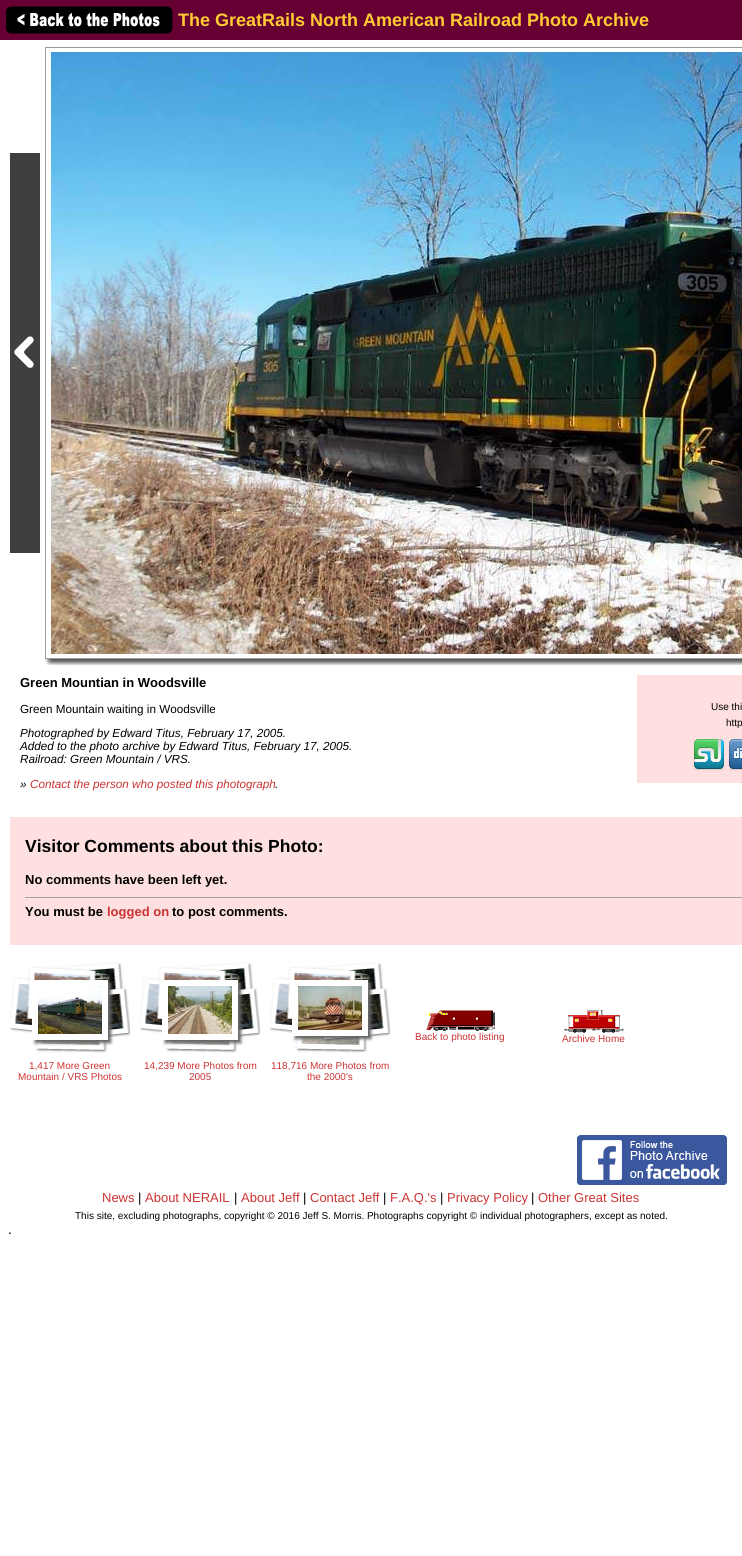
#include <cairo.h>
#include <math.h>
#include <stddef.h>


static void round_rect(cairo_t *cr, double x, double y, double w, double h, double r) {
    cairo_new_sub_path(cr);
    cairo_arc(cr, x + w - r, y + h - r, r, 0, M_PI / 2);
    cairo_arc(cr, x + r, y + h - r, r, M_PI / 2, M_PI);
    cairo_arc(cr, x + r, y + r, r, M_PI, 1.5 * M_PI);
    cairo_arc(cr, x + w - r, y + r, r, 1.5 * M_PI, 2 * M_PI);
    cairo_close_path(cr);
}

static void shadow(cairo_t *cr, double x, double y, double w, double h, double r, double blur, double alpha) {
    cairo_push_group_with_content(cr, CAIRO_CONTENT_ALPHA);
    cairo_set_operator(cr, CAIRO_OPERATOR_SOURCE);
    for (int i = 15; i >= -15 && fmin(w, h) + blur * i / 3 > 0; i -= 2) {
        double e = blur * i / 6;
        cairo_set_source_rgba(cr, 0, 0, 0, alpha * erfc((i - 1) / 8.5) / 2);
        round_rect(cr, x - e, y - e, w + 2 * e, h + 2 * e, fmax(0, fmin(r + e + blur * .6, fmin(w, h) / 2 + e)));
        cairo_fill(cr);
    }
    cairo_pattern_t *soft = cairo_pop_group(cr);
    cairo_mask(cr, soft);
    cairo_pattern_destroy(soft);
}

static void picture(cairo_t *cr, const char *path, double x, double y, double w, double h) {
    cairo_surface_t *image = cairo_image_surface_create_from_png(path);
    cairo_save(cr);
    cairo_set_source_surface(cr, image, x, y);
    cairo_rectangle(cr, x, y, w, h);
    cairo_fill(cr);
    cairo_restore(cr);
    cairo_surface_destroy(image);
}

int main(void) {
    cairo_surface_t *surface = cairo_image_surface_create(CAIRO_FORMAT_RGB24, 742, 1556);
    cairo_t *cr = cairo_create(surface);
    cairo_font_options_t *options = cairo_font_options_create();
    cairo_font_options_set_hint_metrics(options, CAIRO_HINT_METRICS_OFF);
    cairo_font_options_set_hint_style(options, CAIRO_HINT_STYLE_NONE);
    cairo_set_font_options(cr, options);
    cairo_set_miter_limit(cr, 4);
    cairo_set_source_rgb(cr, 1, 1, 1);
    cairo_paint(cr);
    cairo_set_source_rgb(cr, 0.4, 0, 0.2);
    cairo_rectangle(cr, 0, 0, 742, 40);
    cairo_fill(cr);
    picture(cr, "img1.png", 6, 6, 167, 28);
    cairo_select_font_face(cr, "Liberation Sans", CAIRO_FONT_SLANT_NORMAL, CAIRO_FONT_WEIGHT_BOLD);
    cairo_set_font_size(cr, 18);
    cairo_set_source_rgb(cr, 1, 0.8, 0.2);
    cairo_move_to(cr, 178, 26);
    cairo_show_text(cr, "The GreatRails North American Railroad Photo Archive");
    picture(cr, "img2.png", 10, 153, 30, 400);
    cairo_rectangle(cr, 45.5, 47.5, 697, 611);
    cairo_set_source_rgb(cr, 0.604, 0.604, 0.604);
    cairo_set_line_width(cr, 1);
    cairo_stroke(cr);
    picture(cr, "img3.png", 51, 52, 691, 602);
    picture(cr, "img4.png", 45, 659, 697, 6);
    cairo_set_font_size(cr, 13);
    cairo_set_source_rgb(cr, 0, 0, 0);
    cairo_move_to(cr, 20, 687);
    cairo_show_text(cr, "Green Mountian in Woodsville");
    cairo_select_font_face(cr, "Liberation Sans", CAIRO_FONT_SLANT_NORMAL, CAIRO_FONT_WEIGHT_NORMAL);
    cairo_set_font_size(cr, 11.7);
    cairo_move_to(cr, 20, 713);
    cairo_show_text(cr, "Green Mountain waiting in Woodsville");
    cairo_select_font_face(cr, "Liberation Sans", CAIRO_FONT_SLANT_ITALIC, CAIRO_FONT_WEIGHT_NORMAL);
    cairo_move_to(cr, 20, 737);
    cairo_show_text(cr, "Photographed by Edward Titus, February 17, 2005.");
    cairo_move_to(cr, 20, 750);
    cairo_show_text(cr, "Added to the photo archive by Edward Titus, February 17, 2005.");
    cairo_move_to(cr, 20, 763);
    cairo_show_text(cr, "Railroad: Green Mountain / VRS.");
    cairo_move_to(cr, 20, 788);
    cairo_show_text(cr, "»");
    cairo_set_source_rgb(cr, 0.8, 0.2, 0.2);
    cairo_move_to(cr, 30, 788);
    cairo_show_text(cr, "Contact the person who posted this photograph");
    cairo_set_source_rgb(cr, 0, 0, 0);
    cairo_move_to(cr, 275, 788);
    cairo_show_text(cr, ".");
    cairo_set_source_rgb(cr, 1, 0.878, 0.878);
    cairo_rectangle(cr, 637, 675, 105, 108);
    cairo_fill(cr);
    cairo_select_font_face(cr, "Liberation Sans", CAIRO_FONT_SLANT_NORMAL, CAIRO_FONT_WEIGHT_NORMAL);
    cairo_set_font_size(cr, 10);
    cairo_set_source_rgb(cr, 0, 0, 0);
    cairo_move_to(cr, 711, 710);
    cairo_show_text(cr, "Use thi");
    cairo_move_to(cr, 726, 726);
    cairo_show_text(cr, "http");
    picture(cr, "img5.png", 694, 739, 30, 32);
    picture(cr, "img6.png", 729, 739, 13, 32);
    cairo_set_source_rgb(cr, 1, 0.878, 0.878);
    cairo_rectangle(cr, 10, 817, 732, 128);
    cairo_fill(cr);
    cairo_select_font_face(cr, "Liberation Sans", CAIRO_FONT_SLANT_NORMAL, CAIRO_FONT_WEIGHT_BOLD);
    cairo_set_font_size(cr, 17.5);
    cairo_set_source_rgb(cr, 0, 0, 0);
    cairo_move_to(cr, 25, 852);
    cairo_show_text(cr, "Visitor Comments about this Photo:");
    cairo_set_font_size(cr, 13);
    cairo_move_to(cr, 25, 884);
    cairo_show_text(cr, "No comments have been left yet.");
    cairo_set_source_rgb(cr, 0.624, 0.624, 0.624);
    cairo_rectangle(cr, 25, 897, 717, 1);
    cairo_fill(cr);
    cairo_set_source_rgb(cr, 0, 0, 0);
    cairo_move_to(cr, 25, 916);
    cairo_show_text(cr, "You must be");
    cairo_set_source_rgb(cr, 0.8, 0.2, 0.2);
    cairo_move_to(cr, 107, 916);
    cairo_show_text(cr, "logged on");
    cairo_set_source_rgb(cr, 0, 0, 0);
    cairo_move_to(cr, 172, 916);
    cairo_show_text(cr, "to post comments.");
    picture(cr, "img7.png", 426, 1010, 69, 21);
    cairo_select_font_face(cr, "Liberation Sans", CAIRO_FONT_SLANT_NORMAL, CAIRO_FONT_WEIGHT_NORMAL);
    cairo_set_font_size(cr, 10);
    cairo_set_source_rgb(cr, 0.8, 0.2, 0.2);
    cairo_move_to(cr, 415, 1040);
    cairo_show_text(cr, "Back to photo listing");
    picture(cr, "img8.png", 564, 1010, 60, 23);
    cairo_move_to(cr, 562, 1042);
    cairo_show_text(cr, "Archive Home");
    picture(cr, "img9.png", 10, 962, 120, 91);
    cairo_set_source_rgb(cr, 0.4, 0.4, 0.4);
    shadow(cr, 35, 983, 76, 60, 0, 1.5, 1);
    cairo_set_source_rgb(cr, 1, 1, 1);
    cairo_rectangle(cr, 32, 980, 76, 60);
    cairo_fill(cr);
    picture(cr, "img10.png", 38, 986, 64, 48);
    cairo_set_source_rgb(cr, 0.8, 0.2, 0.2);
    cairo_move_to(cr, 29, 1069);
    cairo_show_text(cr, "1,417 More Green");
    cairo_move_to(cr, 18, 1080);
    cairo_show_text(cr, "Mountain / VRS Photos");
    picture(cr, "img9.png", 140, 962, 120, 91);
    cairo_set_source_rgb(cr, 0.4, 0.4, 0.4);
    shadow(cr, 165, 983, 76, 60, 0, 1.5, 1);
    cairo_set_source_rgb(cr, 1, 1, 1);
    cairo_rectangle(cr, 162, 980, 76, 60);
    cairo_fill(cr);
    picture(cr, "img11.png", 168, 986, 64, 48);
    cairo_set_source_rgb(cr, 0.8, 0.2, 0.2);
    cairo_move_to(cr, 144, 1069);
    cairo_show_text(cr, "14,239 More Photos from");
    cairo_move_to(cr, 189, 1080);
    cairo_show_text(cr, "2005");
    picture(cr, "img9.png", 270, 962, 120, 91);
    cairo_set_source_rgb(cr, 0.4, 0.4, 0.4);
    shadow(cr, 295, 983, 76, 56, 0, 1.5, 1);
    cairo_set_source_rgb(cr, 1, 1, 1);
    cairo_rectangle(cr, 292, 980, 76, 56);
    cairo_fill(cr);
    picture(cr, "img12.png", 298, 986, 64, 44);
    cairo_set_source_rgb(cr, 0.8, 0.2, 0.2);
    cairo_move_to(cr, 271, 1069);
    cairo_show_text(cr, "118,716 More Photos from");
    cairo_move_to(cr, 307, 1080);
    cairo_show_text(cr, "the 2000's");
    picture(cr, "img13.png", 577, 1135, 150, 50);
    cairo_set_font_size(cr, 13);
    cairo_move_to(cr, 102, 1202);
    cairo_show_text(cr, "News");
    cairo_set_source_rgb(cr, 0, 0, 0);
    cairo_move_to(cr, 138, 1202);
    cairo_show_text(cr, "|");
    cairo_set_source_rgb(cr, 0.8, 0.2, 0.2);
    cairo_move_to(cr, 145, 1202);
    cairo_show_text(cr, "About NERAIL");
    cairo_set_source_rgb(cr, 0, 0, 0);
    cairo_move_to(cr, 234, 1202);
    cairo_show_text(cr, "|");
    cairo_set_source_rgb(cr, 0.8, 0.2, 0.2);
    cairo_move_to(cr, 241, 1202);
    cairo_show_text(cr, "About Jeff");
    cairo_set_source_rgb(cr, 0, 0, 0);
    cairo_move_to(cr, 303, 1202);
    cairo_show_text(cr, "|");
    cairo_set_source_rgb(cr, 0.8, 0.2, 0.2);
    cairo_move_to(cr, 310, 1202);
    cairo_show_text(cr, "Contact Jeff");
    cairo_set_source_rgb(cr, 0, 0, 0);
    cairo_move_to(cr, 383, 1202);
    cairo_show_text(cr, "|");
    cairo_set_source_rgb(cr, 0.8, 0.2, 0.2);
    cairo_move_to(cr, 390, 1202);
    cairo_show_text(cr, "F.A.Q.'s");
    cairo_set_source_rgb(cr, 0, 0, 0);
    cairo_move_to(cr, 440, 1202);
    cairo_show_text(cr, "|");
    cairo_set_source_rgb(cr, 0.8, 0.2, 0.2);
    cairo_move_to(cr, 447, 1202);
    cairo_show_text(cr, "Privacy Policy");
    cairo_set_source_rgb(cr, 0, 0, 0);
    cairo_move_to(cr, 531, 1202);
    cairo_show_text(cr, "|");
    cairo_set_source_rgb(cr, 0.8, 0.2, 0.2);
    cairo_move_to(cr, 538, 1202);
    cairo_show_text(cr, "Other Great Sites");
    cairo_set_font_size(cr, 10);
    cairo_set_source_rgb(cr, 0, 0, 0);
    cairo_move_to(cr, 75, 1219);
    cairo_show_text(cr, "This site, excluding photographs, copyright © 2016 Jeff S. Morris. Photographs copyright © individual photographers, except as noted.");
    cairo_set_font_size(cr, 14);
    cairo_move_to(cr, 8, 1234);
    cairo_show_text(cr, ".");
    cairo_surface_write_to_png(surface, "page.png");
    cairo_font_options_destroy(options);
    cairo_destroy(cr);
    cairo_surface_destroy(surface);
    return 0;
}
